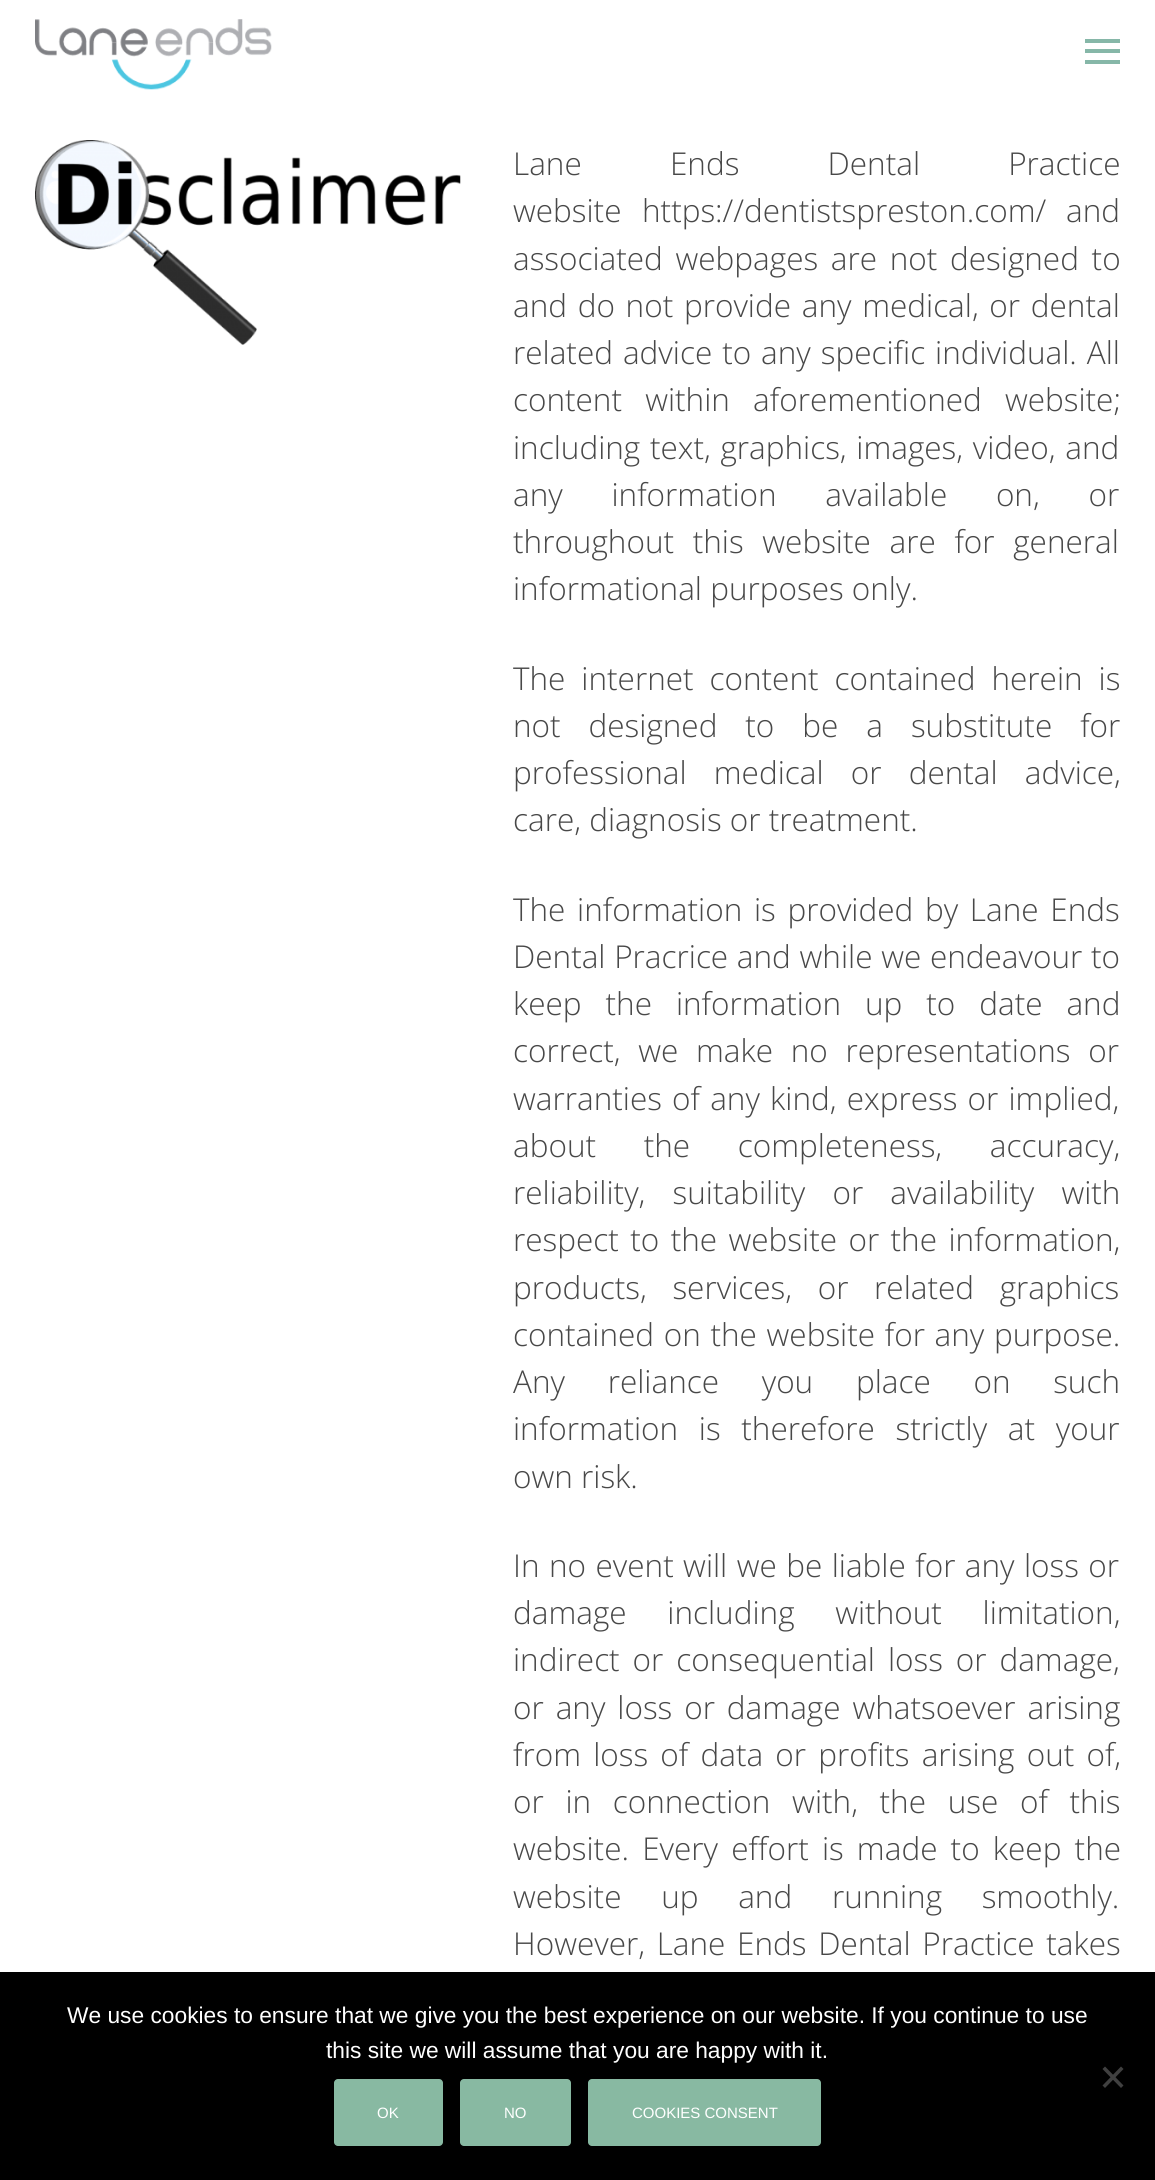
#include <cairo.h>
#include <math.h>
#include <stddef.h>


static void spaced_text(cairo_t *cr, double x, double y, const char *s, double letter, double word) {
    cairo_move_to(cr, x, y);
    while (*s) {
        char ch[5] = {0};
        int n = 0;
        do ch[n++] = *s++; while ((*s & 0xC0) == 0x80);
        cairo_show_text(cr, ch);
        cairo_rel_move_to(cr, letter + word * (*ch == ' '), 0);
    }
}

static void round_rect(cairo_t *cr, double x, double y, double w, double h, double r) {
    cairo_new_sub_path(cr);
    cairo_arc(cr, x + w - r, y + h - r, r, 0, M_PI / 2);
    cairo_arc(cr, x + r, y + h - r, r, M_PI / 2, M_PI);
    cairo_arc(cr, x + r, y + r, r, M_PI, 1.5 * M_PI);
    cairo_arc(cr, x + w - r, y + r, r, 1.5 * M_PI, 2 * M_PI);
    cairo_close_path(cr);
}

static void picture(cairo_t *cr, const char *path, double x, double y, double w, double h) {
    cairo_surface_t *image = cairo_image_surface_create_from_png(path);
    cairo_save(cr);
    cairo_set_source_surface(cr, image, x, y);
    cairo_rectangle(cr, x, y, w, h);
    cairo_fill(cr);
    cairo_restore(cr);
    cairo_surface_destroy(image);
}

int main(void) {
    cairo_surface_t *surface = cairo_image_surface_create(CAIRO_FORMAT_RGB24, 1155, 2180);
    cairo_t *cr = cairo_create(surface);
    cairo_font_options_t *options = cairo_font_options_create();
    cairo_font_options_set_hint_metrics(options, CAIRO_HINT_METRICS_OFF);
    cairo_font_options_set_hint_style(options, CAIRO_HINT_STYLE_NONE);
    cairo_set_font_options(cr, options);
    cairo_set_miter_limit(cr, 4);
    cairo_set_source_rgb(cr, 1, 1, 1);
    cairo_paint(cr);
    picture(cr, "img1.png", 35, 19, 237, 71);
    cairo_set_source_rgb(cr, 0.525, 0.718, 0.659);
    cairo_rectangle(cr, 1085, 39, 35, 4);
    cairo_fill(cr);
    cairo_rectangle(cr, 1085, 49, 35, 4);
    cairo_fill(cr);
    cairo_rectangle(cr, 1085, 60, 35, 4);
    cairo_fill(cr);
    picture(cr, "img2.png", 35, 140, 426, 205);
    cairo_select_font_face(cr, "Open Sans Light", CAIRO_FONT_SLANT_NORMAL, CAIRO_FONT_WEIGHT_NORMAL);
    cairo_set_font_size(cr, 31.5);
    cairo_set_source_rgb(cr, 0.282, 0.282, 0.282);
    spaced_text(cr, 513, 175, "Lane Ends Dental Practice", 0, 80);
    cairo_move_to(cr, 513, 222);
    cairo_show_text(cr, "website");
    cairo_move_to(cr, 642, 222);
    cairo_show_text(cr, "https://dentistspreston.com/");
    cairo_move_to(cr, 1066, 222);
    cairo_show_text(cr, "and");
    spaced_text(cr, 513, 270, "associated webpages are not designed to", 0, 4.5);
    spaced_text(cr, 513, 317, "and do not provide any medical, or dental", 0, 2.5);
    spaced_text(cr, 513, 364, "related advice to any specific individual. All", 0, 1.75);
    spaced_text(cr, 513, 411, "content within aforementioned website;", 0, 15);
    spaced_text(cr, 513, 459, "including text, graphics, images, video, and", 0, 1.5);
    spaced_text(cr, 513, 506, "any information available on, or", 0, 40.5);
    spaced_text(cr, 513, 553, "throughout this website are for general", 0, 10.5);
    cairo_move_to(cr, 513, 600);
    cairo_show_text(cr, "informational purposes only.");
    spaced_text(cr, 513, 690, "The internet content contained herein is", 0, 7.75);
    spaced_text(cr, 513, 737, "not designed to be a substitute for", 0, 19.75);
    spaced_text(cr, 513, 784, "professional medical or dental advice,", 0, 19);
    cairo_move_to(cr, 513, 831);
    cairo_show_text(cr, "care, diagnosis or treatment.");
    spaced_text(cr, 513, 921, "The information is provided by Lane Ends", 0, 3.5);
    spaced_text(cr, 513, 968, "Dental Pracrice and while we endeavour to", 0, 0.5);
    spaced_text(cr, 513, 1015, "keep the information up to date and", 0, 15.75);
    spaced_text(cr, 513, 1062, "correct, we make no representations or", 0, 9.5);
    spaced_text(cr, 513, 1110, "warranties of any kind, express or implied,", 0, 2);
    spaced_text(cr, 513, 1157, "about the completeness, accuracy,", 0, 39.5);
    spaced_text(cr, 513, 1204, "reliability, suitability or availability with", 0, 19);
    spaced_text(cr, 513, 1251, "respect to the website or the information,", 0, 3.25);
    spaced_text(cr, 513, 1299, "products, services, or related graphics", 0, 17.5);
    spaced_text(cr, 513, 1346, "contained on the website for any purpose.", 0, 1.5);
    spaced_text(cr, 513, 1393, "Any reliance you place on such", 0, 34.5);
    spaced_text(cr, 513, 1440, "information is therefore strictly at your", 0, 12.5);
    cairo_move_to(cr, 513, 1488);
    cairo_show_text(cr, "own risk.");
    spaced_text(cr, 513, 1577, "In no event will we be liable for any loss or", 0, 1.25);
    spaced_text(cr, 513, 1624, "damage including without limitation,", 0, 32.5);
    spaced_text(cr, 513, 1671, "indirect or consequential loss or damage,", 0, 4.75);
    spaced_text(cr, 513, 1719, "or any loss or damage whatsoever arising", 0, 3.75);
    spaced_text(cr, 513, 1766, "from loss of data or profits arising out of,", 0, 4);
    spaced_text(cr, 513, 1813, "or in connection with, the use of this", 0, 13.5);
    spaced_text(cr, 513, 1860, "website. Every effort is made to keep the", 0, 5);
    spaced_text(cr, 513, 1908, "website up and running smoothly.", 0, 31.5);
    spaced_text(cr, 513, 1955, "However, Lane Ends Dental Practice takes", 0, 3.5);
    cairo_set_source_rgb(cr, 0, 0, 0);
    cairo_rectangle(cr, 0, 1972, 1155, 208);
    cairo_fill(cr);
    cairo_select_font_face(cr, "Liberation Sans", CAIRO_FONT_SLANT_NORMAL, CAIRO_FONT_WEIGHT_NORMAL);
    cairo_set_font_size(cr, 22.75);
    cairo_set_source_rgb(cr, 1, 1, 1);
    cairo_move_to(cr, 67, 2023);
    cairo_show_text(cr, "We use cookies to ensure that we give you the best experience on our website. If you continue to use");
    cairo_move_to(cr, 326, 2058);
    cairo_show_text(cr, "this site we will assume that you are happy with it.");
    cairo_set_source_rgb(cr, 0.251, 0.251, 0.251);
    cairo_new_path(cr);
    cairo_move_to(cr, 1121, 2066.5);
    cairo_line_to(cr, 1123.5, 2069);
    cairo_line_to(cr, 1105, 2088);
    cairo_line_to(cr, 1102.5, 2085.5);
    cairo_close_path(cr);
    cairo_fill(cr);
    cairo_new_path(cr);
    cairo_move_to(cr, 1102.5, 2069);
    cairo_line_to(cr, 1105, 2066.5);
    cairo_line_to(cr, 1123.5, 2085.5);
    cairo_line_to(cr, 1121, 2088);
    cairo_close_path(cr);
    cairo_fill(cr);
    cairo_set_source_rgb(cr, 0.533, 0.725, 0.635);
    round_rect(cr, 334, 2079, 109, 67, 4);
    cairo_fill(cr);
    cairo_set_font_size(cr, 15);
    cairo_set_source_rgb(cr, 1, 1, 1);
    cairo_move_to(cr, 377, 2118);
    cairo_show_text(cr, "OK");
    cairo_set_source_rgb(cr, 0.533, 0.725, 0.635);
    round_rect(cr, 460, 2079, 111, 67, 4);
    cairo_fill(cr);
    cairo_set_source_rgb(cr, 1, 1, 1);
    cairo_move_to(cr, 504, 2118);
    cairo_show_text(cr, "NO");
    cairo_set_source_rgb(cr, 0.533, 0.725, 0.635);
    round_rect(cr, 588, 2079, 233, 67, 4);
    cairo_fill(cr);
    cairo_set_source_rgb(cr, 1, 1, 1);
    cairo_move_to(cr, 632, 2118);
    cairo_show_text(cr, "COOKIES CONSENT");
    cairo_surface_write_to_png(surface, "page.png");
    cairo_font_options_destroy(options);
    cairo_destroy(cr);
    cairo_surface_destroy(surface);
    return 0;
}
